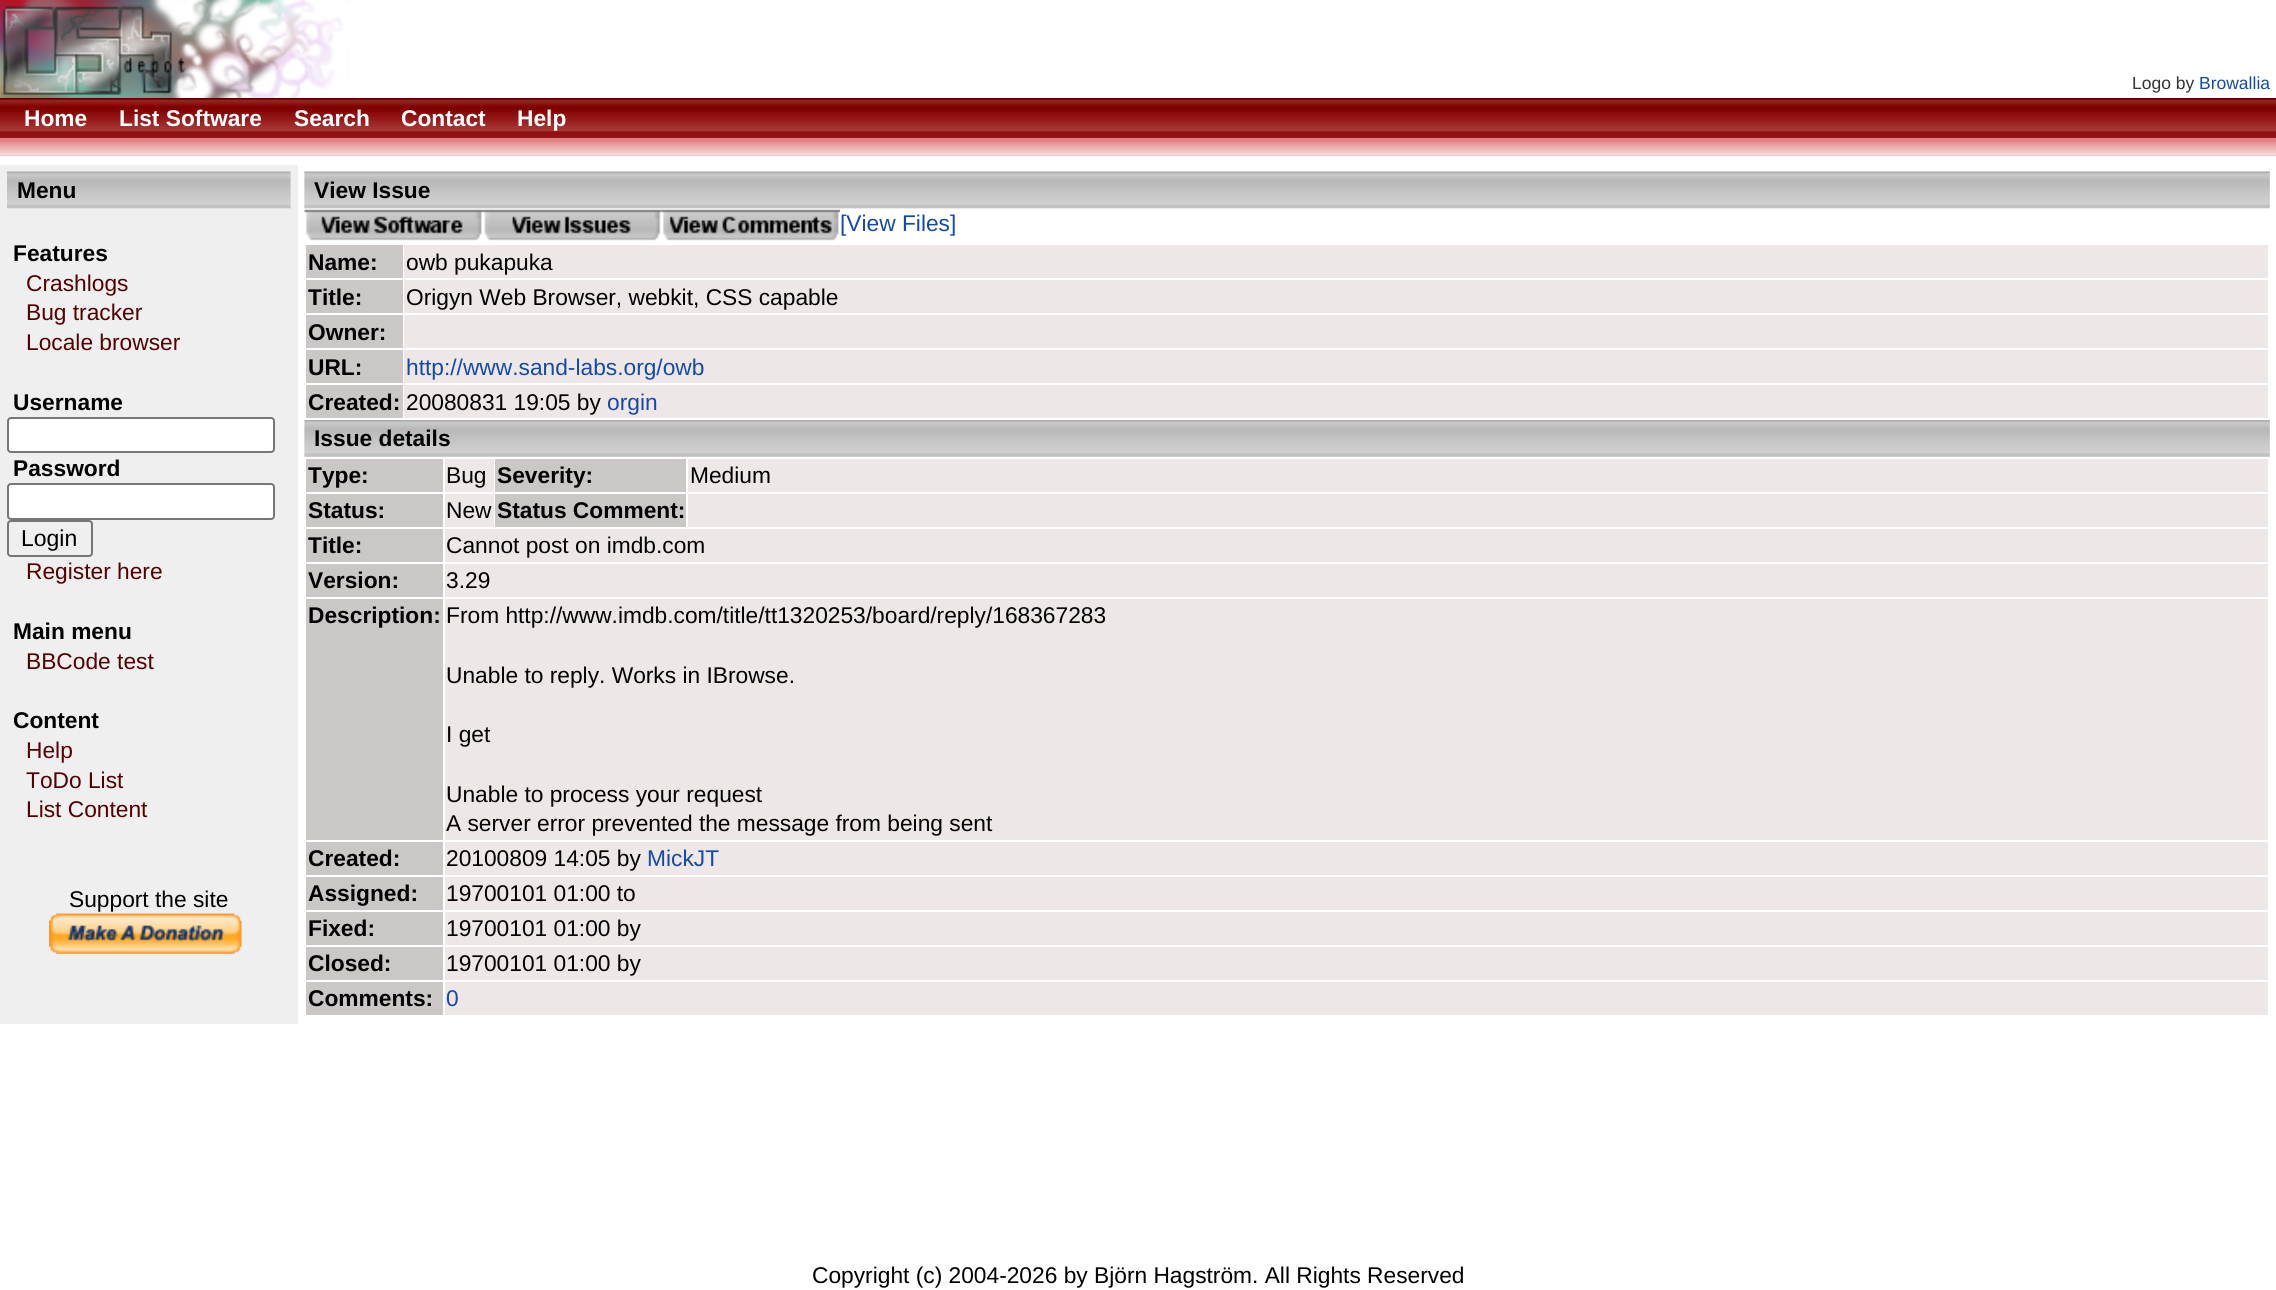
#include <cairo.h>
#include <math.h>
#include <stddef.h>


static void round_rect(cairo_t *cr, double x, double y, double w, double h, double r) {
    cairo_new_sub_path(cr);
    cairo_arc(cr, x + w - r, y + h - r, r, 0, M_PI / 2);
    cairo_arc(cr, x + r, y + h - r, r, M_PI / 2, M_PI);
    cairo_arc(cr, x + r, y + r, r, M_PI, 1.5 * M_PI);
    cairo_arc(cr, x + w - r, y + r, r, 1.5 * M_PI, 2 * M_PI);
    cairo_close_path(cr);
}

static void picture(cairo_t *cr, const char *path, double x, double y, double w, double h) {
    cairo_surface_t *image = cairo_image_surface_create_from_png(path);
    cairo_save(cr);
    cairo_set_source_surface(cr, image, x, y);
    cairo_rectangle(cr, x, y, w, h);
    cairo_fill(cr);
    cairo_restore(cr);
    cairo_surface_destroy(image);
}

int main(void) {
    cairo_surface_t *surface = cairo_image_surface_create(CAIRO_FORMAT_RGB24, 2276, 1290);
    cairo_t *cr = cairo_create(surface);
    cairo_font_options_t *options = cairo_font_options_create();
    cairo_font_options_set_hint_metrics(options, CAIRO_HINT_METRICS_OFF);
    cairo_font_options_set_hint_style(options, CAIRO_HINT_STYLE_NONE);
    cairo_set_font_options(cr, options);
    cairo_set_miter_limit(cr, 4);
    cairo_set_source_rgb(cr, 1, 1, 1);
    cairo_paint(cr);
    picture(cr, "img1.png", 0, 0, 350, 98);
    cairo_select_font_face(cr, "Liberation Sans", CAIRO_FONT_SLANT_NORMAL, CAIRO_FONT_WEIGHT_NORMAL);
    cairo_set_font_size(cr, 17.5);
    cairo_set_source_rgb(cr, 0.2, 0.2, 0.2);
    cairo_move_to(cr, 2132, 89);
    cairo_show_text(cr, "Logo by");
    cairo_set_source_rgb(cr, 0.086, 0.286, 0.655);
    cairo_move_to(cr, 2199, 89);
    cairo_show_text(cr, "Browallia");
    picture(cr, "img2.png", 0, 98, 2276, 40);
    cairo_select_font_face(cr, "Liberation Sans", CAIRO_FONT_SLANT_NORMAL, CAIRO_FONT_WEIGHT_BOLD);
    cairo_set_font_size(cr, 22.75);
    cairo_set_source_rgb(cr, 1, 1, 1);
    cairo_move_to(cr, 24, 126);
    cairo_show_text(cr, "Home");
    cairo_move_to(cr, 119, 126);
    cairo_show_text(cr, "List Software");
    cairo_move_to(cr, 294, 126);
    cairo_show_text(cr, "Search");
    cairo_move_to(cr, 401, 126);
    cairo_show_text(cr, "Contact");
    cairo_move_to(cr, 517, 126);
    cairo_show_text(cr, "Help");
    cairo_set_source_rgb(cr, 0.882, 0.502, 0.502);
    cairo_rectangle(cr, 0, 138, 2276, 18);
    cairo_fill(cr);
    picture(cr, "img3.png", 0, 141, 2276, 15);
    cairo_set_source_rgb(cr, 0.937, 0.937, 0.937);
    cairo_rectangle(cr, 0, 165, 298, 859);
    cairo_fill(cr);
    picture(cr, "img4.png", 7, 171, 284, 38);
    cairo_set_source_rgb(cr, 0, 0, 0);
    cairo_move_to(cr, 17, 198);
    cairo_show_text(cr, "Menu");
    cairo_move_to(cr, 13, 261);
    cairo_show_text(cr, "Features");
    cairo_select_font_face(cr, "Liberation Sans", CAIRO_FONT_SLANT_NORMAL, CAIRO_FONT_WEIGHT_NORMAL);
    cairo_set_source_rgb(cr, 0.333, 0, 0);
    cairo_move_to(cr, 26, 291);
    cairo_show_text(cr, "Crashlogs");
    cairo_move_to(cr, 26, 320);
    cairo_show_text(cr, "Bug tracker");
    cairo_move_to(cr, 26, 350);
    cairo_show_text(cr, "Locale browser");
    cairo_select_font_face(cr, "Liberation Sans", CAIRO_FONT_SLANT_NORMAL, CAIRO_FONT_WEIGHT_BOLD);
    cairo_set_source_rgb(cr, 0, 0, 0);
    cairo_move_to(cr, 13, 410);
    cairo_show_text(cr, "Username");
    cairo_set_source_rgb(cr, 1, 1, 1);
    round_rect(cr, 8, 418, 266, 34, 3);
    cairo_fill_preserve(cr);
    cairo_set_source_rgb(cr, 0.463, 0.463, 0.463);
    cairo_stroke(cr);
    cairo_set_source_rgb(cr, 0, 0, 0);
    cairo_move_to(cr, 13, 476);
    cairo_show_text(cr, "Password");
    cairo_set_source_rgb(cr, 1, 1, 1);
    round_rect(cr, 8, 484, 266, 35, 3);
    cairo_fill_preserve(cr);
    cairo_set_source_rgb(cr, 0.463, 0.463, 0.463);
    cairo_stroke(cr);
    round_rect(cr, 8, 521, 84, 35, 3);
    cairo_stroke(cr);
    cairo_select_font_face(cr, "Liberation Sans", CAIRO_FONT_SLANT_NORMAL, CAIRO_FONT_WEIGHT_NORMAL);
    cairo_set_font_size(cr, 23);
    cairo_set_source_rgb(cr, 0, 0, 0);
    cairo_move_to(cr, 21, 546);
    cairo_show_text(cr, "Login");
    cairo_set_font_size(cr, 22.75);
    cairo_set_source_rgb(cr, 0.333, 0, 0);
    cairo_move_to(cr, 26, 579);
    cairo_show_text(cr, "Register here");
    cairo_select_font_face(cr, "Liberation Sans", CAIRO_FONT_SLANT_NORMAL, CAIRO_FONT_WEIGHT_BOLD);
    cairo_set_source_rgb(cr, 0, 0, 0);
    cairo_move_to(cr, 13, 639);
    cairo_show_text(cr, "Main menu");
    cairo_select_font_face(cr, "Liberation Sans", CAIRO_FONT_SLANT_NORMAL, CAIRO_FONT_WEIGHT_NORMAL);
    cairo_set_source_rgb(cr, 0.333, 0, 0);
    cairo_move_to(cr, 26, 669);
    cairo_show_text(cr, "BBCode test");
    cairo_select_font_face(cr, "Liberation Sans", CAIRO_FONT_SLANT_NORMAL, CAIRO_FONT_WEIGHT_BOLD);
    cairo_set_source_rgb(cr, 0, 0, 0);
    cairo_move_to(cr, 13, 728);
    cairo_show_text(cr, "Content");
    cairo_select_font_face(cr, "Liberation Sans", CAIRO_FONT_SLANT_NORMAL, CAIRO_FONT_WEIGHT_NORMAL);
    cairo_set_source_rgb(cr, 0.333, 0, 0);
    cairo_move_to(cr, 26, 758);
    cairo_show_text(cr, "Help");
    cairo_move_to(cr, 26, 788);
    cairo_show_text(cr, "ToDo List");
    cairo_move_to(cr, 26, 817);
    cairo_show_text(cr, "List Content");
    cairo_set_source_rgb(cr, 0, 0, 0);
    cairo_move_to(cr, 69, 907);
    cairo_show_text(cr, "Support the site");
    picture(cr, "img5.png", 49, 913, 193, 41);
    picture(cr, "img6.png", 304, 171, 1966, 38);
    cairo_select_font_face(cr, "Liberation Sans", CAIRO_FONT_SLANT_NORMAL, CAIRO_FONT_WEIGHT_BOLD);
    cairo_move_to(cr, 314, 198);
    cairo_show_text(cr, "View Issue");
    picture(cr, "img7.png", 304, 209, 179, 32);
    picture(cr, "img8.png", 483, 209, 179, 32);
    picture(cr, "img9.png", 661, 209, 179, 32);
    cairo_select_font_face(cr, "Liberation Sans", CAIRO_FONT_SLANT_NORMAL, CAIRO_FONT_WEIGHT_NORMAL);
    cairo_set_source_rgb(cr, 0.086, 0.286, 0.655);
    cairo_move_to(cr, 840, 231);
    cairo_show_text(cr, "[View Files]");
    cairo_set_source_rgb(cr, 0.8, 0.78, 0.78);
    cairo_rectangle(cr, 306, 245, 97, 33);
    cairo_fill(cr);
    cairo_select_font_face(cr, "Liberation Sans", CAIRO_FONT_SLANT_NORMAL, CAIRO_FONT_WEIGHT_BOLD);
    cairo_set_source_rgb(cr, 0, 0, 0);
    cairo_move_to(cr, 308, 270);
    cairo_show_text(cr, "Name:");
    cairo_set_source_rgb(cr, 0.933, 0.906, 0.906);
    cairo_rectangle(cr, 404, 245, 1864, 33);
    cairo_fill(cr);
    cairo_select_font_face(cr, "Liberation Sans", CAIRO_FONT_SLANT_NORMAL, CAIRO_FONT_WEIGHT_NORMAL);
    cairo_set_source_rgb(cr, 0, 0, 0);
    cairo_move_to(cr, 406, 270);
    cairo_show_text(cr, "owb pukapuka");
    cairo_set_source_rgb(cr, 0.8, 0.78, 0.78);
    cairo_rectangle(cr, 306, 280, 97, 33);
    cairo_fill(cr);
    cairo_select_font_face(cr, "Liberation Sans", CAIRO_FONT_SLANT_NORMAL, CAIRO_FONT_WEIGHT_BOLD);
    cairo_set_source_rgb(cr, 0, 0, 0);
    cairo_move_to(cr, 308, 305);
    cairo_show_text(cr, "Title:");
    cairo_set_source_rgb(cr, 0.933, 0.906, 0.906);
    cairo_rectangle(cr, 404, 280, 1864, 33);
    cairo_fill(cr);
    cairo_select_font_face(cr, "Liberation Sans", CAIRO_FONT_SLANT_NORMAL, CAIRO_FONT_WEIGHT_NORMAL);
    cairo_set_source_rgb(cr, 0, 0, 0);
    cairo_move_to(cr, 406, 305);
    cairo_show_text(cr, "Origyn Web Browser, webkit, CSS capable");
    cairo_set_source_rgb(cr, 0.8, 0.78, 0.78);
    cairo_rectangle(cr, 306, 315, 97, 33);
    cairo_fill(cr);
    cairo_select_font_face(cr, "Liberation Sans", CAIRO_FONT_SLANT_NORMAL, CAIRO_FONT_WEIGHT_BOLD);
    cairo_set_source_rgb(cr, 0, 0, 0);
    cairo_move_to(cr, 308, 340);
    cairo_show_text(cr, "Owner:");
    cairo_set_source_rgb(cr, 0.933, 0.906, 0.906);
    cairo_rectangle(cr, 404, 315, 1864, 33);
    cairo_fill(cr);
    cairo_set_source_rgb(cr, 0.8, 0.78, 0.78);
    cairo_rectangle(cr, 306, 350, 97, 33);
    cairo_fill(cr);
    cairo_set_source_rgb(cr, 0, 0, 0);
    cairo_move_to(cr, 308, 375);
    cairo_show_text(cr, "URL:");
    cairo_set_source_rgb(cr, 0.933, 0.906, 0.906);
    cairo_rectangle(cr, 404, 350, 1864, 33);
    cairo_fill(cr);
    cairo_select_font_face(cr, "Liberation Sans", CAIRO_FONT_SLANT_NORMAL, CAIRO_FONT_WEIGHT_NORMAL);
    cairo_set_source_rgb(cr, 0.086, 0.286, 0.655);
    cairo_move_to(cr, 406, 375);
    cairo_show_text(cr, "http://www.sand-labs.org/owb");
    cairo_set_source_rgb(cr, 0.8, 0.78, 0.78);
    cairo_rectangle(cr, 306, 385, 97, 33);
    cairo_fill(cr);
    cairo_select_font_face(cr, "Liberation Sans", CAIRO_FONT_SLANT_NORMAL, CAIRO_FONT_WEIGHT_BOLD);
    cairo_set_source_rgb(cr, 0, 0, 0);
    cairo_move_to(cr, 308, 410);
    cairo_show_text(cr, "Created:");
    cairo_set_source_rgb(cr, 0.933, 0.906, 0.906);
    cairo_rectangle(cr, 404, 385, 1864, 33);
    cairo_fill(cr);
    cairo_select_font_face(cr, "Liberation Sans", CAIRO_FONT_SLANT_NORMAL, CAIRO_FONT_WEIGHT_NORMAL);
    cairo_set_source_rgb(cr, 0, 0, 0);
    cairo_move_to(cr, 406, 410);
    cairo_show_text(cr, "20080831 19:05 by");
    cairo_set_source_rgb(cr, 0.086, 0.286, 0.655);
    cairo_move_to(cr, 607, 410);
    cairo_show_text(cr, "orgin");
    picture(cr, "img10.png", 304, 420, 1966, 37);
    cairo_select_font_face(cr, "Liberation Sans", CAIRO_FONT_SLANT_NORMAL, CAIRO_FONT_WEIGHT_BOLD);
    cairo_set_source_rgb(cr, 0, 0, 0);
    cairo_move_to(cr, 314, 446);
    cairo_show_text(cr, "Issue details");
    cairo_set_source_rgb(cr, 0.8, 0.78, 0.78);
    cairo_rectangle(cr, 306, 459, 137, 33);
    cairo_fill(cr);
    cairo_set_source_rgb(cr, 0, 0, 0);
    cairo_move_to(cr, 308, 483);
    cairo_show_text(cr, "Type:");
    cairo_set_source_rgb(cr, 0.933, 0.906, 0.906);
    cairo_rectangle(cr, 445, 459, 49, 33);
    cairo_fill(cr);
    cairo_select_font_face(cr, "Liberation Sans", CAIRO_FONT_SLANT_NORMAL, CAIRO_FONT_WEIGHT_NORMAL);
    cairo_set_source_rgb(cr, 0, 0, 0);
    cairo_move_to(cr, 446, 483);
    cairo_show_text(cr, "Bug");
    cairo_set_source_rgb(cr, 0.8, 0.78, 0.78);
    cairo_rectangle(cr, 495, 459, 191, 33);
    cairo_fill(cr);
    cairo_select_font_face(cr, "Liberation Sans", CAIRO_FONT_SLANT_NORMAL, CAIRO_FONT_WEIGHT_BOLD);
    cairo_set_source_rgb(cr, 0, 0, 0);
    cairo_move_to(cr, 497, 483);
    cairo_show_text(cr, "Severity:");
    cairo_set_source_rgb(cr, 0.933, 0.906, 0.906);
    cairo_rectangle(cr, 688, 459, 1580, 33);
    cairo_fill(cr);
    cairo_select_font_face(cr, "Liberation Sans", CAIRO_FONT_SLANT_NORMAL, CAIRO_FONT_WEIGHT_NORMAL);
    cairo_set_source_rgb(cr, 0, 0, 0);
    cairo_move_to(cr, 690, 483);
    cairo_show_text(cr, "Medium");
    cairo_set_source_rgb(cr, 0.8, 0.78, 0.78);
    cairo_rectangle(cr, 306, 494, 137, 33);
    cairo_fill(cr);
    cairo_select_font_face(cr, "Liberation Sans", CAIRO_FONT_SLANT_NORMAL, CAIRO_FONT_WEIGHT_BOLD);
    cairo_set_source_rgb(cr, 0, 0, 0);
    cairo_move_to(cr, 308, 518);
    cairo_show_text(cr, "Status:");
    cairo_set_source_rgb(cr, 0.933, 0.906, 0.906);
    cairo_rectangle(cr, 445, 494, 49, 33);
    cairo_fill(cr);
    cairo_select_font_face(cr, "Liberation Sans", CAIRO_FONT_SLANT_NORMAL, CAIRO_FONT_WEIGHT_NORMAL);
    cairo_set_source_rgb(cr, 0, 0, 0);
    cairo_move_to(cr, 446, 518);
    cairo_show_text(cr, "New");
    cairo_set_source_rgb(cr, 0.8, 0.78, 0.78);
    cairo_rectangle(cr, 495, 494, 191, 33);
    cairo_fill(cr);
    cairo_select_font_face(cr, "Liberation Sans", CAIRO_FONT_SLANT_NORMAL, CAIRO_FONT_WEIGHT_BOLD);
    cairo_set_source_rgb(cr, 0, 0, 0);
    cairo_move_to(cr, 497, 518);
    cairo_show_text(cr, "Status Comment:");
    cairo_set_source_rgb(cr, 0.933, 0.906, 0.906);
    cairo_rectangle(cr, 688, 494, 1580, 33);
    cairo_fill(cr);
    cairo_set_source_rgb(cr, 0.8, 0.78, 0.78);
    cairo_rectangle(cr, 306, 529, 137, 33);
    cairo_fill(cr);
    cairo_set_source_rgb(cr, 0, 0, 0);
    cairo_move_to(cr, 308, 553);
    cairo_show_text(cr, "Title:");
    cairo_set_source_rgb(cr, 0.933, 0.906, 0.906);
    cairo_rectangle(cr, 445, 529, 1823, 33);
    cairo_fill(cr);
    cairo_select_font_face(cr, "Liberation Sans", CAIRO_FONT_SLANT_NORMAL, CAIRO_FONT_WEIGHT_NORMAL);
    cairo_set_source_rgb(cr, 0, 0, 0);
    cairo_move_to(cr, 446, 553);
    cairo_show_text(cr, "Cannot post on imdb.com");
    cairo_set_source_rgb(cr, 0.8, 0.78, 0.78);
    cairo_rectangle(cr, 306, 564, 137, 33);
    cairo_fill(cr);
    cairo_select_font_face(cr, "Liberation Sans", CAIRO_FONT_SLANT_NORMAL, CAIRO_FONT_WEIGHT_BOLD);
    cairo_set_source_rgb(cr, 0, 0, 0);
    cairo_move_to(cr, 308, 588);
    cairo_show_text(cr, "Version:");
    cairo_set_source_rgb(cr, 0.933, 0.906, 0.906);
    cairo_rectangle(cr, 445, 564, 1823, 33);
    cairo_fill(cr);
    cairo_select_font_face(cr, "Liberation Sans", CAIRO_FONT_SLANT_NORMAL, CAIRO_FONT_WEIGHT_NORMAL);
    cairo_set_source_rgb(cr, 0, 0, 0);
    cairo_move_to(cr, 446, 588);
    cairo_show_text(cr, "3.29");
    cairo_set_source_rgb(cr, 0.8, 0.78, 0.78);
    cairo_rectangle(cr, 306, 599, 137, 241);
    cairo_fill(cr);
    cairo_select_font_face(cr, "Liberation Sans", CAIRO_FONT_SLANT_NORMAL, CAIRO_FONT_WEIGHT_BOLD);
    cairo_set_source_rgb(cr, 0, 0, 0);
    cairo_move_to(cr, 308, 623);
    cairo_show_text(cr, "Description:");
    cairo_set_source_rgb(cr, 0.933, 0.906, 0.906);
    cairo_rectangle(cr, 445, 599, 1823, 241);
    cairo_fill(cr);
    cairo_select_font_face(cr, "Liberation Sans", CAIRO_FONT_SLANT_NORMAL, CAIRO_FONT_WEIGHT_NORMAL);
    cairo_set_source_rgb(cr, 0, 0, 0);
    cairo_move_to(cr, 446, 623);
    cairo_show_text(cr, "From http://www.imdb.com/title/tt1320253/board/reply/168367283");
    cairo_move_to(cr, 446, 683);
    cairo_show_text(cr, "Unable to reply. Works in IBrowse.");
    cairo_move_to(cr, 446, 742);
    cairo_show_text(cr, "I get");
    cairo_move_to(cr, 446, 802);
    cairo_show_text(cr, "Unable to process your request");
    cairo_move_to(cr, 446, 831);
    cairo_show_text(cr, "A server error prevented the message from being sent");
    cairo_set_source_rgb(cr, 0.8, 0.78, 0.78);
    cairo_rectangle(cr, 306, 842, 137, 33);
    cairo_fill(cr);
    cairo_select_font_face(cr, "Liberation Sans", CAIRO_FONT_SLANT_NORMAL, CAIRO_FONT_WEIGHT_BOLD);
    cairo_set_source_rgb(cr, 0, 0, 0);
    cairo_move_to(cr, 308, 866);
    cairo_show_text(cr, "Created:");
    cairo_set_source_rgb(cr, 0.933, 0.906, 0.906);
    cairo_rectangle(cr, 445, 842, 1823, 33);
    cairo_fill(cr);
    cairo_select_font_face(cr, "Liberation Sans", CAIRO_FONT_SLANT_NORMAL, CAIRO_FONT_WEIGHT_NORMAL);
    cairo_set_source_rgb(cr, 0, 0, 0);
    cairo_move_to(cr, 446, 866);
    cairo_show_text(cr, "20100809 14:05 by");
    cairo_set_source_rgb(cr, 0.086, 0.286, 0.655);
    cairo_move_to(cr, 647, 866);
    cairo_show_text(cr, "MickJT");
    cairo_set_source_rgb(cr, 0.8, 0.78, 0.78);
    cairo_rectangle(cr, 306, 877, 137, 33);
    cairo_fill(cr);
    cairo_select_font_face(cr, "Liberation Sans", CAIRO_FONT_SLANT_NORMAL, CAIRO_FONT_WEIGHT_BOLD);
    cairo_set_source_rgb(cr, 0, 0, 0);
    cairo_move_to(cr, 308, 901);
    cairo_show_text(cr, "Assigned:");
    cairo_set_source_rgb(cr, 0.933, 0.906, 0.906);
    cairo_rectangle(cr, 445, 877, 1823, 33);
    cairo_fill(cr);
    cairo_select_font_face(cr, "Liberation Sans", CAIRO_FONT_SLANT_NORMAL, CAIRO_FONT_WEIGHT_NORMAL);
    cairo_set_source_rgb(cr, 0, 0, 0);
    cairo_move_to(cr, 446, 901);
    cairo_show_text(cr, "19700101 01:00 to");
    cairo_set_source_rgb(cr, 0.8, 0.78, 0.78);
    cairo_rectangle(cr, 306, 912, 137, 33);
    cairo_fill(cr);
    cairo_select_font_face(cr, "Liberation Sans", CAIRO_FONT_SLANT_NORMAL, CAIRO_FONT_WEIGHT_BOLD);
    cairo_set_source_rgb(cr, 0, 0, 0);
    cairo_move_to(cr, 308, 936);
    cairo_show_text(cr, "Fixed:");
    cairo_set_source_rgb(cr, 0.933, 0.906, 0.906);
    cairo_rectangle(cr, 445, 912, 1823, 33);
    cairo_fill(cr);
    cairo_select_font_face(cr, "Liberation Sans", CAIRO_FONT_SLANT_NORMAL, CAIRO_FONT_WEIGHT_NORMAL);
    cairo_set_source_rgb(cr, 0, 0, 0);
    cairo_move_to(cr, 446, 936);
    cairo_show_text(cr, "19700101 01:00 by");
    cairo_set_source_rgb(cr, 0.8, 0.78, 0.78);
    cairo_rectangle(cr, 306, 947, 137, 33);
    cairo_fill(cr);
    cairo_select_font_face(cr, "Liberation Sans", CAIRO_FONT_SLANT_NORMAL, CAIRO_FONT_WEIGHT_BOLD);
    cairo_set_source_rgb(cr, 0, 0, 0);
    cairo_move_to(cr, 308, 971);
    cairo_show_text(cr, "Closed:");
    cairo_set_source_rgb(cr, 0.933, 0.906, 0.906);
    cairo_rectangle(cr, 445, 947, 1823, 33);
    cairo_fill(cr);
    cairo_select_font_face(cr, "Liberation Sans", CAIRO_FONT_SLANT_NORMAL, CAIRO_FONT_WEIGHT_NORMAL);
    cairo_set_source_rgb(cr, 0, 0, 0);
    cairo_move_to(cr, 446, 971);
    cairo_show_text(cr, "19700101 01:00 by");
    cairo_set_source_rgb(cr, 0.8, 0.78, 0.78);
    cairo_rectangle(cr, 306, 982, 137, 33);
    cairo_fill(cr);
    cairo_select_font_face(cr, "Liberation Sans", CAIRO_FONT_SLANT_NORMAL, CAIRO_FONT_WEIGHT_BOLD);
    cairo_set_source_rgb(cr, 0, 0, 0);
    cairo_move_to(cr, 308, 1006);
    cairo_show_text(cr, "Comments:");
    cairo_set_source_rgb(cr, 0.933, 0.906, 0.906);
    cairo_rectangle(cr, 445, 982, 1823, 33);
    cairo_fill(cr);
    cairo_select_font_face(cr, "Liberation Sans", CAIRO_FONT_SLANT_NORMAL, CAIRO_FONT_WEIGHT_NORMAL);
    cairo_set_source_rgb(cr, 0.086, 0.286, 0.655);
    cairo_move_to(cr, 446, 1006);
    cairo_show_text(cr, "0");
    cairo_set_source_rgb(cr, 0, 0, 0);
    cairo_move_to(cr, 812, 1283);
    cairo_show_text(cr, "Copyright (c) 2004-2026 by Björn Hagström. All Rights Reserved");
    cairo_surface_write_to_png(surface, "page.png");
    cairo_font_options_destroy(options);
    cairo_destroy(cr);
    cairo_surface_destroy(surface);
    return 0;
}
